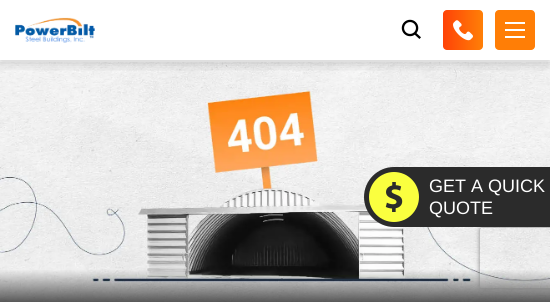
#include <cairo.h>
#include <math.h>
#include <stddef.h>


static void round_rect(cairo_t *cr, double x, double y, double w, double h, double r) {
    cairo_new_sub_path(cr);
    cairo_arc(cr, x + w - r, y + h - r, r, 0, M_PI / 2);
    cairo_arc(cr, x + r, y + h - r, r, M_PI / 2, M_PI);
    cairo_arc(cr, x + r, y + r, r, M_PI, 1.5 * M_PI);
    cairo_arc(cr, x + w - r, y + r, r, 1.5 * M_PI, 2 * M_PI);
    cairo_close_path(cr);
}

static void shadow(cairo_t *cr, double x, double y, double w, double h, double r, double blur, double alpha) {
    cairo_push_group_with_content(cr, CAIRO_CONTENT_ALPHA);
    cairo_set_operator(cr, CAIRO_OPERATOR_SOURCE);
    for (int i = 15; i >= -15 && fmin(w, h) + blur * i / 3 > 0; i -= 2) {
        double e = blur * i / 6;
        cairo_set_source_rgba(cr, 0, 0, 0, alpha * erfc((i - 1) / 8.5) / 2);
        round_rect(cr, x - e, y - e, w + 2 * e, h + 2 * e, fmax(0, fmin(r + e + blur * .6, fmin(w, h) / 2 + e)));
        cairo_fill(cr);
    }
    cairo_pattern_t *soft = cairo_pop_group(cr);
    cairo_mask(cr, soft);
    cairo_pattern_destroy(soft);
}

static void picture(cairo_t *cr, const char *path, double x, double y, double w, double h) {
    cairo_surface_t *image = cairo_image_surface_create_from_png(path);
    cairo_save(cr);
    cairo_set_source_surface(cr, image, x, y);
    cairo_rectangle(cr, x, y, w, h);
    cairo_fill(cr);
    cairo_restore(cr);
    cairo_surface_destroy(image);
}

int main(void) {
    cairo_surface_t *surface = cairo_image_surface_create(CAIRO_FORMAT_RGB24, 550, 302);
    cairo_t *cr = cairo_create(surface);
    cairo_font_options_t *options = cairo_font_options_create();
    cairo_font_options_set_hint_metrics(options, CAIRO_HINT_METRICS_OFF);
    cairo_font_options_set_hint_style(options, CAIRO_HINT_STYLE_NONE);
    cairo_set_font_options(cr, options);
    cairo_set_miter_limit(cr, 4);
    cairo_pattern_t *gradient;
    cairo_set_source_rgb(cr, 1, 1, 1);
    cairo_paint(cr);
    picture(cr, "img4.png", 0, 62, 550, 240);
    cairo_save(cr);
    cairo_rectangle(cr, 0, 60, 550, 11);
    cairo_clip(cr);
    cairo_set_source_rgb(cr, 0, 0, 0);
    shadow(cr, 0, 3, 550, 60, 0, 6, 0.2);
    cairo_restore(cr);
    picture(cr, "img1.png", 15, 17, 80, 26);
    picture(cr, "img2.png", 401, 19, 20, 20);
    gradient = cairo_pattern_create_linear(483, 30, 443, 30);
    cairo_pattern_add_color_stop_rgba(gradient, 0.03, 1, 0.494, 0.027, 1);
    cairo_pattern_add_color_stop_rgba(gradient, 0.99, 1, 0.263, 0.027, 1);
    cairo_set_source(cr, gradient);
    cairo_pattern_destroy(gradient);
    round_rect(cr, 443, 10, 40, 40, 4);
    cairo_fill(cr);
    picture(cr, "img3.png", 453, 20, 20, 21);
    cairo_set_source_rgb(cr, 1, 0.494, 0.027);
    round_rect(cr, 495, 10, 40, 40, 4);
    cairo_fill(cr);
    cairo_set_source_rgb(cr, 1, 1, 1);
    cairo_rectangle(cr, 505, 22, 20, 2);
    cairo_fill(cr);
    cairo_rectangle(cr, 505, 29, 20, 2);
    cairo_fill(cr);
    cairo_rectangle(cr, 505, 36, 20, 2);
    cairo_fill(cr);
    cairo_save(cr);
    cairo_set_fill_rule(cr, CAIRO_FILL_RULE_EVEN_ODD);
    cairo_new_path(cr);
    cairo_move_to(cr, 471, 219);
    cairo_line_to(cr, 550, 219);
    cairo_line_to(cr, 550, 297);
    cairo_line_to(cr, 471, 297);
    cairo_close_path(cr);
    cairo_move_to(cr, 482, 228);
    cairo_line_to(cr, 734, 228);
    cairo_curve_to(cr, 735, 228, 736, 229, 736, 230);
    cairo_line_to(cr, 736, 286);
    cairo_curve_to(cr, 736, 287, 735, 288, 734, 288);
    cairo_line_to(cr, 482, 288);
    cairo_curve_to(cr, 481, 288, 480, 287, 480, 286);
    cairo_line_to(cr, 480, 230);
    cairo_curve_to(cr, 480, 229, 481, 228, 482, 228);
    cairo_close_path(cr);
    cairo_clip(cr);
    cairo_set_source_rgb(cr, 0.502, 0.502, 0.502);
    shadow(cr, 480, 228, 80, 60, 2, 2.5, 1);
    cairo_restore(cr);
    cairo_set_source_rgb(cr, 0.169, 0.169, 0.169);
    cairo_new_path(cr);
    cairo_move_to(cr, 394, 167);
    cairo_line_to(cr, 550, 167);
    cairo_line_to(cr, 550, 227);
    cairo_line_to(cr, 394, 227);
    cairo_curve_to(cr, 377.5, 227, 364, 213.5, 364, 197);
    cairo_curve_to(cr, 364, 180.5, 377.5, 167, 394, 167);
    cairo_close_path(cr);
    cairo_fill(cr);
    cairo_set_source_rgb(cr, 0.98, 1, 0.247);
    cairo_arc(cr, 394, 197, 25, 0, 2 * M_PI);
    cairo_fill(cr);
    picture(cr, "img5.png", 385, 182, 18, 30);
    cairo_select_font_face(cr, "Liberation Sans", CAIRO_FONT_SLANT_NORMAL, CAIRO_FONT_WEIGHT_NORMAL);
    cairo_set_font_size(cr, 18);
    cairo_set_source_rgb(cr, 1, 1, 1);
    cairo_move_to(cr, 429, 192);
    cairo_show_text(cr, "GET A QUICK");
    cairo_move_to(cr, 429, 214);
    cairo_show_text(cr, "QUOTE");
    cairo_surface_write_to_png(surface, "page.png");
    cairo_font_options_destroy(options);
    cairo_destroy(cr);
    cairo_surface_destroy(surface);
    return 0;
}
